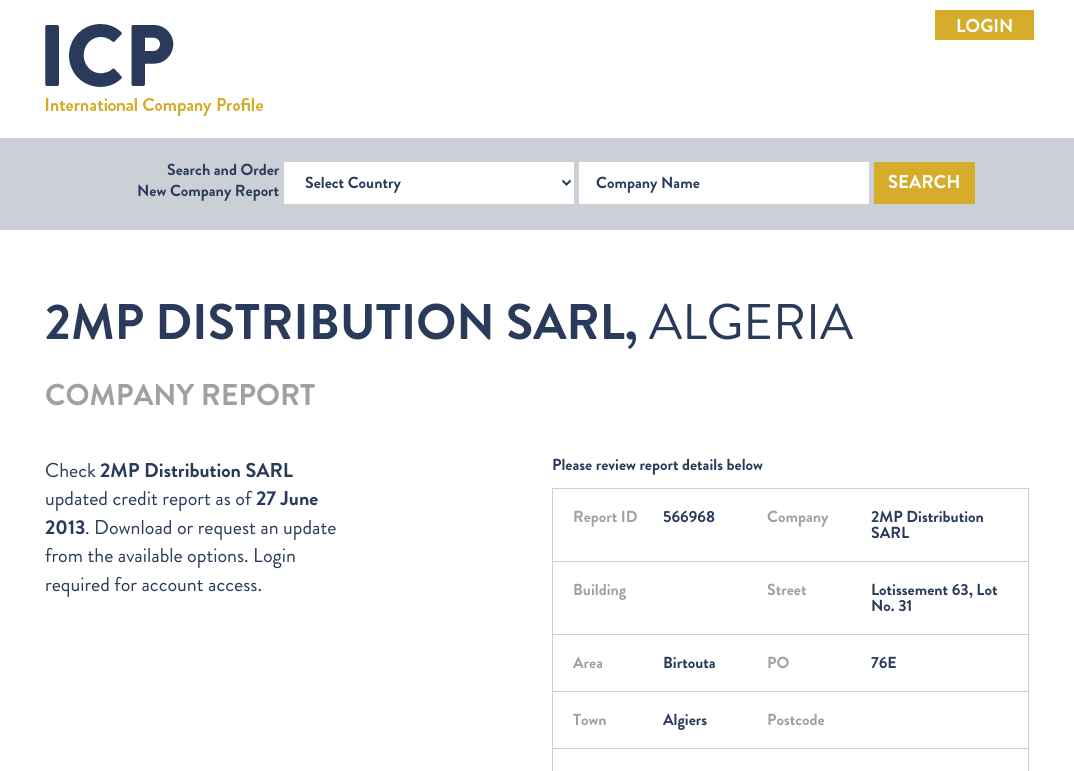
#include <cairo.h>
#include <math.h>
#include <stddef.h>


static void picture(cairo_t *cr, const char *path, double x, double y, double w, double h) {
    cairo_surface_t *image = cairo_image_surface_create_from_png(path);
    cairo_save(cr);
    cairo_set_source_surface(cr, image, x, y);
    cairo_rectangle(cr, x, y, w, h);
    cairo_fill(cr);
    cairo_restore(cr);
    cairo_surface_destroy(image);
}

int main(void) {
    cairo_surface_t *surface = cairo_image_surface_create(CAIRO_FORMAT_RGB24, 1074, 771);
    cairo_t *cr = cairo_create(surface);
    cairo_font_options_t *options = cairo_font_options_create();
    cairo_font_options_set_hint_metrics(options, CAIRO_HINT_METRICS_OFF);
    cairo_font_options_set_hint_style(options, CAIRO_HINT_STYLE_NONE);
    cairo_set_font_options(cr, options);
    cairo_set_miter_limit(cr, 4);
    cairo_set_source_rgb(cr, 1, 1, 1);
    cairo_paint(cr);
    picture(cr, "img1.png", 45, 24, 218, 92);
    cairo_set_source_rgb(cr, 0.835, 0.678, 0.165);
    cairo_rectangle(cr, 935, 10, 99, 30);
    cairo_fill(cr);
    cairo_select_font_face(cr, "Brandon Grotesque", CAIRO_FONT_SLANT_NORMAL, CAIRO_FONT_WEIGHT_BOLD);
    cairo_set_font_size(cr, 18.5);
    cairo_set_source_rgb(cr, 1, 1, 1);
    cairo_move_to(cr, 956, 32);
    cairo_show_text(cr, "LOGIN");
    cairo_set_source_rgb(cr, 0.796, 0.816, 0.843);
    cairo_rectangle(cr, 0, 138, 1074, 92);
    cairo_fill(cr);
    cairo_set_font_size(cr, 16);
    cairo_set_source_rgb(cr, 0.161, 0.227, 0.353);
    cairo_move_to(cr, 167, 175);
    cairo_show_text(cr, "Search and Order");
    cairo_move_to(cr, 137, 196);
    cairo_show_text(cr, "New Company Report");
    cairo_set_source_rgb(cr, 1, 1, 1);
    cairo_rectangle(cr, 284, 162, 290, 42);
    cairo_fill(cr);
    cairo_new_path(cr);
    cairo_move_to(cr, 562.5, 180.5);
    cairo_line_to(cr, 566.5, 184.5);
    cairo_line_to(cr, 570.5, 180.5);
    cairo_set_source_rgb(cr, 0.161, 0.227, 0.353);
    cairo_stroke(cr);
    cairo_move_to(cr, 305, 188);
    cairo_show_text(cr, "Select Country");
    cairo_set_source_rgb(cr, 1, 1, 1);
    cairo_rectangle(cr, 579, 162, 290, 42);
    cairo_fill(cr);
    cairo_set_source_rgb(cr, 0.161, 0.227, 0.353);
    cairo_move_to(cr, 596, 188);
    cairo_show_text(cr, "Company Name");
    cairo_set_source_rgb(cr, 0.835, 0.678, 0.165);
    cairo_rectangle(cr, 874, 162, 101, 42);
    cairo_fill(cr);
    cairo_set_font_size(cr, 18.5);
    cairo_set_source_rgb(cr, 1, 1, 1);
    cairo_move_to(cr, 888, 188);
    cairo_show_text(cr, "SEARCH");
    cairo_set_font_size(cr, 50);
    cairo_set_source_rgb(cr, 0.161, 0.227, 0.353);
    cairo_move_to(cr, 45, 339);
    cairo_show_text(cr, "2MP DISTRIBUTION SARL,");
    cairo_select_font_face(cr, "Brandon Grotesque", CAIRO_FONT_SLANT_NORMAL, CAIRO_FONT_WEIGHT_NORMAL);
    cairo_move_to(cr, 649, 339);
    cairo_show_text(cr, "ALGERIA");
    cairo_select_font_face(cr, "Brandon Grotesque", CAIRO_FONT_SLANT_NORMAL, CAIRO_FONT_WEIGHT_BOLD);
    cairo_set_font_size(cr, 30);
    cairo_set_source_rgb(cr, 0.624, 0.627, 0.631);
    cairo_move_to(cr, 45, 405);
    cairo_show_text(cr, "COMPANY REPORT");
    cairo_select_font_face(cr, "Brandon Grotesque", CAIRO_FONT_SLANT_NORMAL, CAIRO_FONT_WEIGHT_NORMAL);
    cairo_set_font_size(cr, 20);
    cairo_set_source_rgb(cr, 0.161, 0.227, 0.353);
    cairo_move_to(cr, 45, 477);
    cairo_show_text(cr, "Check");
    cairo_select_font_face(cr, "Brandon Grotesque", CAIRO_FONT_SLANT_NORMAL, CAIRO_FONT_WEIGHT_BOLD);
    cairo_move_to(cr, 100, 477);
    cairo_show_text(cr, "2MP Distribution SARL");
    cairo_select_font_face(cr, "Brandon Grotesque", CAIRO_FONT_SLANT_NORMAL, CAIRO_FONT_WEIGHT_NORMAL);
    cairo_move_to(cr, 45, 505);
    cairo_show_text(cr, "updated credit report as of");
    cairo_select_font_face(cr, "Brandon Grotesque", CAIRO_FONT_SLANT_NORMAL, CAIRO_FONT_WEIGHT_BOLD);
    cairo_move_to(cr, 256, 505);
    cairo_show_text(cr, "27 June");
    cairo_move_to(cr, 45, 534);
    cairo_show_text(cr, "2013");
    cairo_select_font_face(cr, "Brandon Grotesque", CAIRO_FONT_SLANT_NORMAL, CAIRO_FONT_WEIGHT_NORMAL);
    cairo_move_to(cr, 85, 534);
    cairo_show_text(cr, ". Download or request an update");
    cairo_move_to(cr, 45, 562);
    cairo_show_text(cr, "from the available options. Login");
    cairo_move_to(cr, 45, 591);
    cairo_show_text(cr, "required for account access.");
    cairo_select_font_face(cr, "Brandon Grotesque", CAIRO_FONT_SLANT_NORMAL, CAIRO_FONT_WEIGHT_BOLD);
    cairo_set_font_size(cr, 16);
    cairo_move_to(cr, 552, 470);
    cairo_show_text(cr, "Please review report details below");
    cairo_set_source_rgb(cr, 0.796, 0.816, 0.843);
    cairo_rectangle(cr, 552, 488, 477, 1);
    cairo_fill(cr);
    cairo_rectangle(cr, 552, 561, 477, 1);
    cairo_fill(cr);
    cairo_rectangle(cr, 552, 634, 477, 1);
    cairo_fill(cr);
    cairo_rectangle(cr, 552, 691, 477, 1);
    cairo_fill(cr);
    cairo_rectangle(cr, 552, 748, 477, 1);
    cairo_fill(cr);
    cairo_rectangle(cr, 1028, 748, 1, 23);
    cairo_fill(cr);
    cairo_rectangle(cr, 1028, 691, 1, 58);
    cairo_fill(cr);
    cairo_rectangle(cr, 1028, 634, 1, 58);
    cairo_fill(cr);
    cairo_rectangle(cr, 1028, 561, 1, 74);
    cairo_fill(cr);
    cairo_rectangle(cr, 1028, 488, 1, 74);
    cairo_fill(cr);
    cairo_rectangle(cr, 552, 748, 1, 23);
    cairo_fill(cr);
    cairo_rectangle(cr, 552, 691, 1, 58);
    cairo_fill(cr);
    cairo_rectangle(cr, 552, 634, 1, 58);
    cairo_fill(cr);
    cairo_rectangle(cr, 552, 561, 1, 74);
    cairo_fill(cr);
    cairo_rectangle(cr, 552, 488, 1, 74);
    cairo_fill(cr);
    cairo_set_source_rgb(cr, 0.624, 0.627, 0.631);
    cairo_move_to(cr, 573, 522);
    cairo_show_text(cr, "Report ID");
    cairo_set_source_rgb(cr, 0.161, 0.227, 0.353);
    cairo_move_to(cr, 663, 522);
    cairo_show_text(cr, "566968");
    cairo_set_source_rgb(cr, 0.624, 0.627, 0.631);
    cairo_move_to(cr, 767, 522);
    cairo_show_text(cr, "Company");
    cairo_set_source_rgb(cr, 0.161, 0.227, 0.353);
    cairo_move_to(cr, 871, 522);
    cairo_show_text(cr, "2MP Distribution");
    cairo_move_to(cr, 871, 538);
    cairo_show_text(cr, "SARL");
    cairo_set_source_rgb(cr, 0.624, 0.627, 0.631);
    cairo_move_to(cr, 573, 595);
    cairo_show_text(cr, "Building");
    cairo_move_to(cr, 767, 595);
    cairo_show_text(cr, "Street");
    cairo_set_source_rgb(cr, 0.161, 0.227, 0.353);
    cairo_move_to(cr, 871, 595);
    cairo_show_text(cr, "Lotissement 63, Lot");
    cairo_move_to(cr, 871, 611);
    cairo_show_text(cr, "No. 31");
    cairo_set_source_rgb(cr, 0.624, 0.627, 0.631);
    cairo_move_to(cr, 573, 668);
    cairo_show_text(cr, "Area");
    cairo_set_source_rgb(cr, 0.161, 0.227, 0.353);
    cairo_move_to(cr, 663, 668);
    cairo_show_text(cr, "Birtouta");
    cairo_set_source_rgb(cr, 0.624, 0.627, 0.631);
    cairo_move_to(cr, 767, 668);
    cairo_show_text(cr, "PO");
    cairo_set_source_rgb(cr, 0.161, 0.227, 0.353);
    cairo_move_to(cr, 871, 668);
    cairo_show_text(cr, "76E");
    cairo_set_source_rgb(cr, 0.624, 0.627, 0.631);
    cairo_move_to(cr, 573, 725);
    cairo_show_text(cr, "Town");
    cairo_set_source_rgb(cr, 0.161, 0.227, 0.353);
    cairo_move_to(cr, 663, 725);
    cairo_show_text(cr, "Algiers");
    cairo_set_source_rgb(cr, 0.624, 0.627, 0.631);
    cairo_move_to(cr, 767, 725);
    cairo_show_text(cr, "Postcode");
    cairo_surface_write_to_png(surface, "page.png");
    cairo_font_options_destroy(options);
    cairo_destroy(cr);
    cairo_surface_destroy(surface);
    return 0;
}
